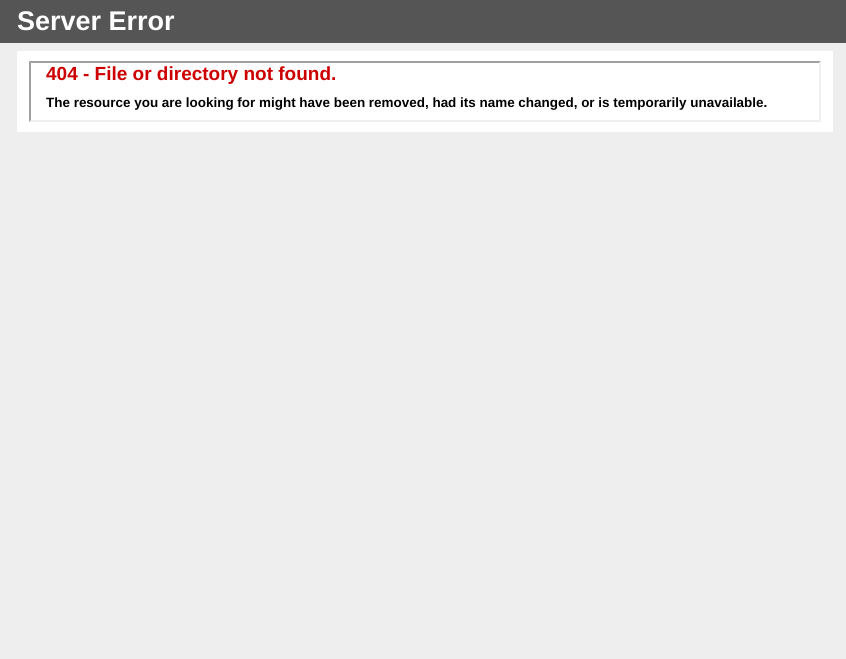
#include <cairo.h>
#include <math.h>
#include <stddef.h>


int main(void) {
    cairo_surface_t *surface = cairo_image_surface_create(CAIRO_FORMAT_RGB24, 846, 659);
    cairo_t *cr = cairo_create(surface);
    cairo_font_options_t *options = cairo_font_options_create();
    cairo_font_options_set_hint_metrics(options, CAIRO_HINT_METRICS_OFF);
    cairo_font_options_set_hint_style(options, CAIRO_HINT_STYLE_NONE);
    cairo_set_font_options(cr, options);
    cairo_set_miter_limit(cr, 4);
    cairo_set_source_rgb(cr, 0.933, 0.933, 0.933);
    cairo_paint(cr);
    cairo_set_source_rgb(cr, 0.333, 0.333, 0.333);
    cairo_rectangle(cr, 0, 0, 846, 43);
    cairo_fill(cr);
    cairo_select_font_face(cr, "Liberation Sans", CAIRO_FONT_SLANT_NORMAL, CAIRO_FONT_WEIGHT_BOLD);
    cairo_set_font_size(cr, 27);
    cairo_set_source_rgb(cr, 1, 1, 1);
    cairo_move_to(cr, 17, 30);
    cairo_show_text(cr, "Server Error");
    cairo_rectangle(cr, 17, 51, 816, 81);
    cairo_fill(cr);
    cairo_set_source_rgb(cr, 0.624, 0.624, 0.624);
    cairo_new_path(cr);
    cairo_move_to(cr, 29, 61);
    cairo_line_to(cr, 821, 61);
    cairo_line_to(cr, 819, 63);
    cairo_line_to(cr, 31, 63);
    cairo_close_path(cr);
    cairo_fill(cr);
    cairo_set_source_rgb(cr, 0.937, 0.937, 0.937);
    cairo_new_path(cr);
    cairo_move_to(cr, 821, 61);
    cairo_line_to(cr, 821, 122);
    cairo_line_to(cr, 819, 120);
    cairo_line_to(cr, 819, 63);
    cairo_close_path(cr);
    cairo_fill(cr);
    cairo_new_path(cr);
    cairo_move_to(cr, 821, 122);
    cairo_line_to(cr, 29, 122);
    cairo_line_to(cr, 31, 120);
    cairo_line_to(cr, 819, 120);
    cairo_close_path(cr);
    cairo_fill(cr);
    cairo_set_source_rgb(cr, 0.624, 0.624, 0.624);
    cairo_new_path(cr);
    cairo_move_to(cr, 29, 122);
    cairo_line_to(cr, 29, 61);
    cairo_line_to(cr, 31, 63);
    cairo_line_to(cr, 31, 120);
    cairo_close_path(cr);
    cairo_fill(cr);
    cairo_set_font_size(cr, 19);
    cairo_set_source_rgb(cr, 0.8, 0, 0);
    cairo_move_to(cr, 46, 80);
    cairo_show_text(cr, "404 - File or directory not found.");
    cairo_set_font_size(cr, 13.45);
    cairo_set_source_rgb(cr, 0, 0, 0);
    cairo_move_to(cr, 46, 107);
    cairo_show_text(cr, "The resource you are looking for might have been removed, had its name changed, or is temporarily unavailable.");
    cairo_surface_write_to_png(surface, "page.png");
    cairo_font_options_destroy(options);
    cairo_destroy(cr);
    cairo_surface_destroy(surface);
    return 0;
}
